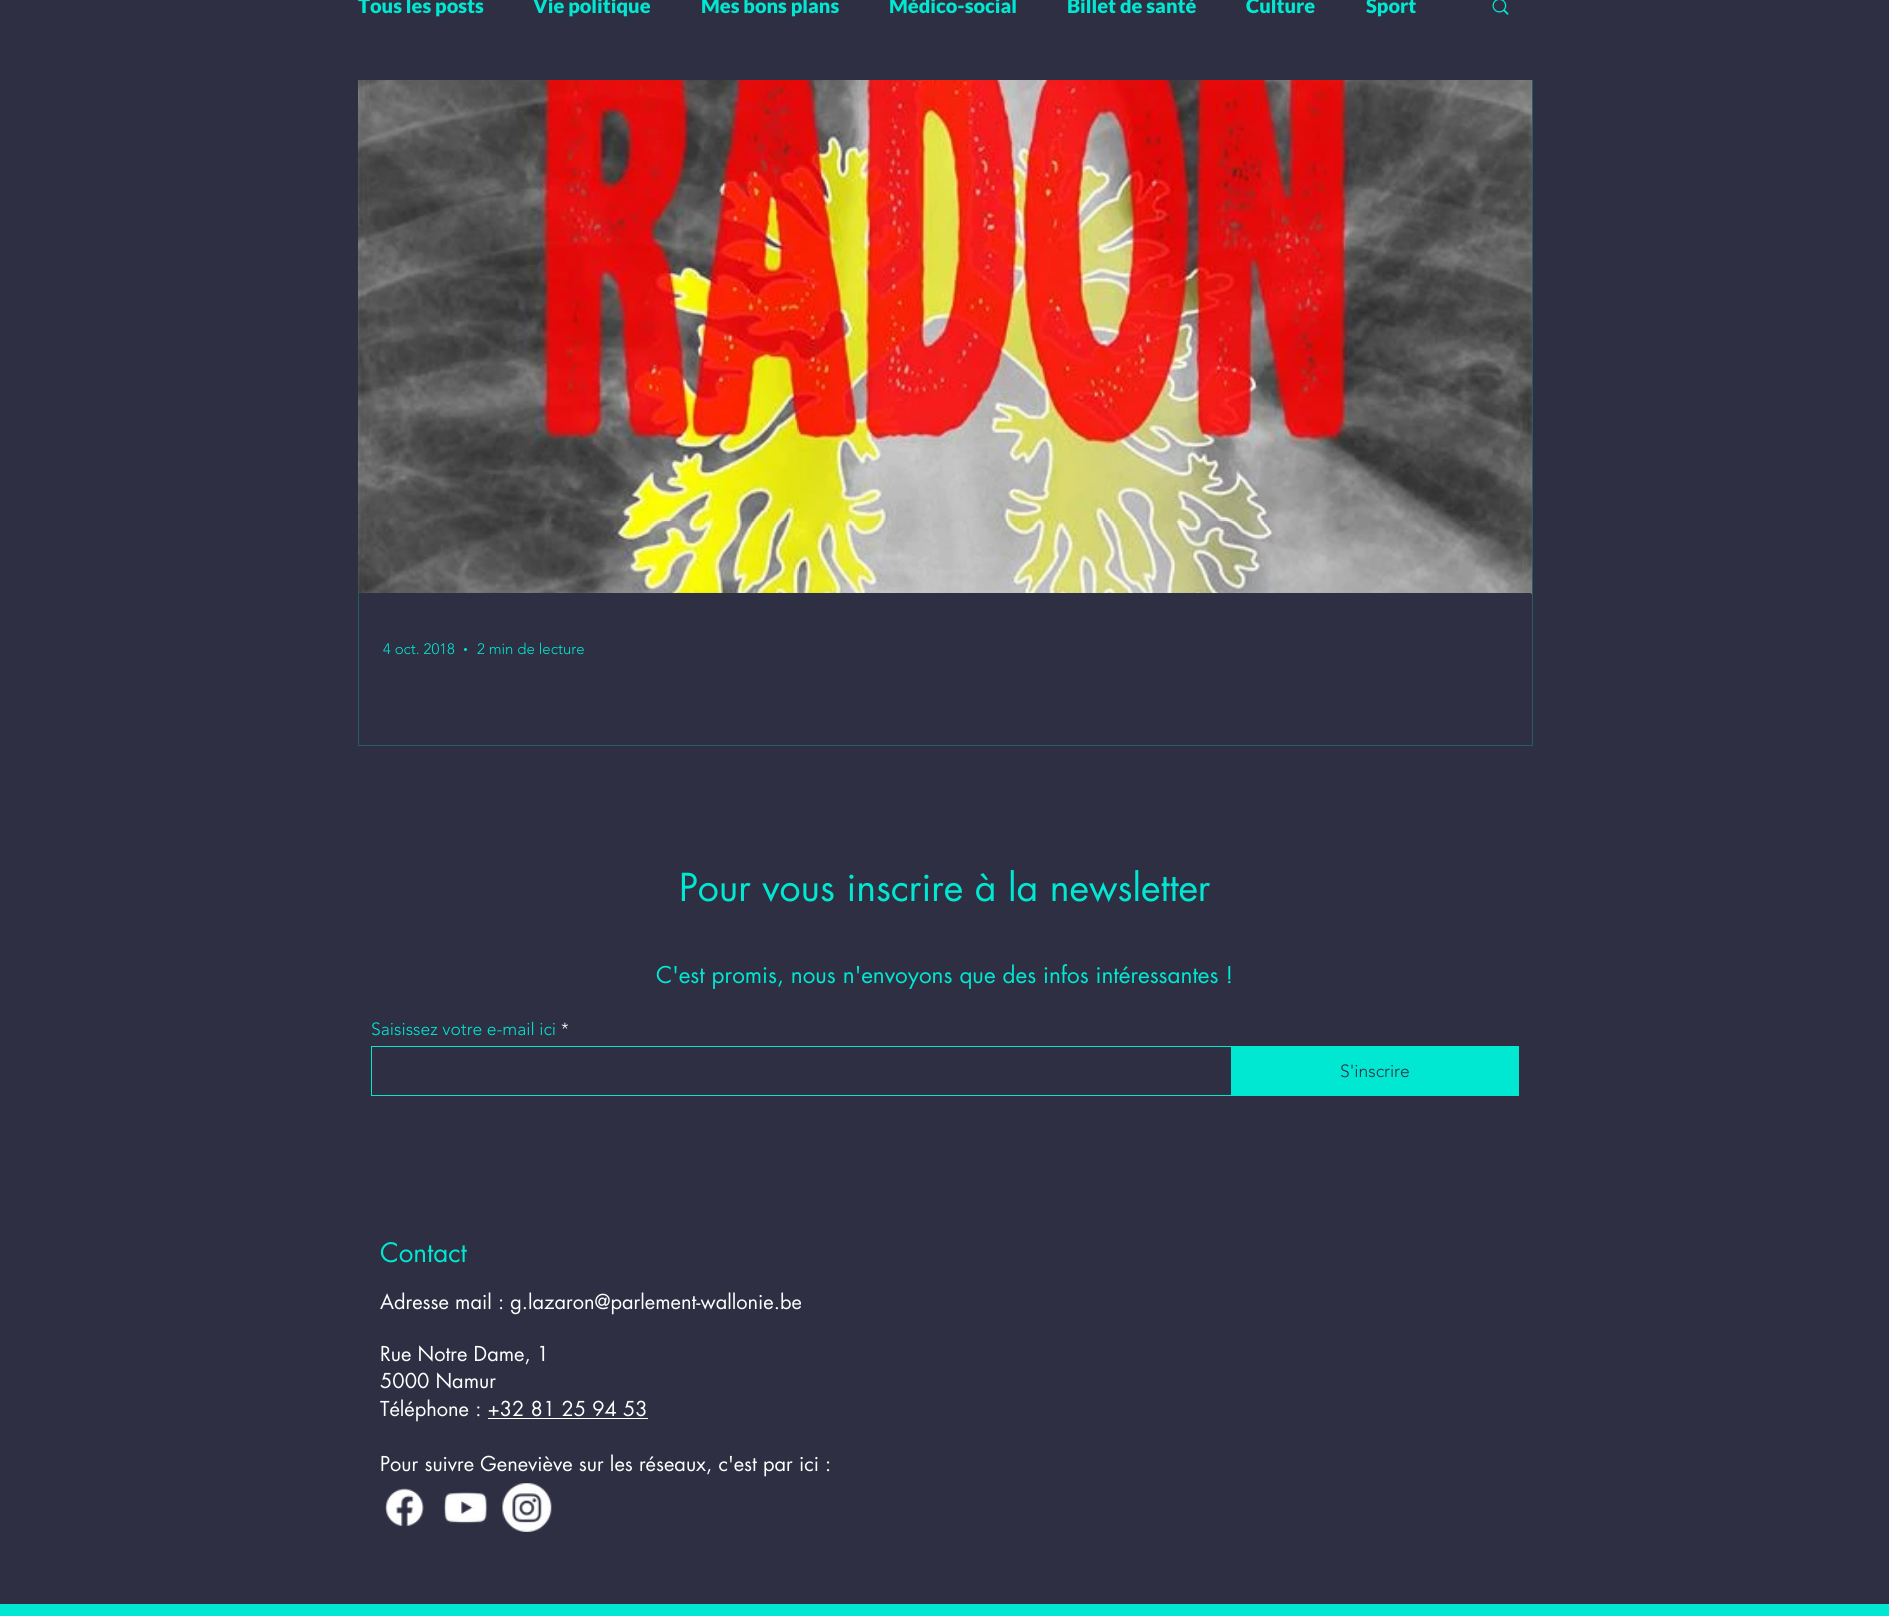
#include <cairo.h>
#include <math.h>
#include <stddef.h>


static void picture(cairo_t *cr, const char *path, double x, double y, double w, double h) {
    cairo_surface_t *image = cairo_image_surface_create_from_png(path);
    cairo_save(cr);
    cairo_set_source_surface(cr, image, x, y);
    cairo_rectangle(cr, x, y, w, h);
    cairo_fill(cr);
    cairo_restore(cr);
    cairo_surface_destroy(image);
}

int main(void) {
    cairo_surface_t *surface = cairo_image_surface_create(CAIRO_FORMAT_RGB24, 1889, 1616);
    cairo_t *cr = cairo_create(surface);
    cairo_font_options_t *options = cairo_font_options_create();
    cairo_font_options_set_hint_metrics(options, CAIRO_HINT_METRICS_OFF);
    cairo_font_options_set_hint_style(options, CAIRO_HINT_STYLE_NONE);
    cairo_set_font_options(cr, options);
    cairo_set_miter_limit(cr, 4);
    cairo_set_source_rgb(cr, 0.18, 0.184, 0.263);
    cairo_paint(cr);
    cairo_select_font_face(cr, "Lato Black", CAIRO_FONT_SLANT_NORMAL, CAIRO_FONT_WEIGHT_NORMAL);
    cairo_set_font_size(cr, 20);
    cairo_set_source_rgb(cr, 0, 0.906, 0.824);
    cairo_move_to(cr, 358, 13);
    cairo_show_text(cr, "Tous les posts");
    cairo_move_to(cr, 533, 13);
    cairo_show_text(cr, "Vie politique");
    cairo_move_to(cr, 701, 13);
    cairo_show_text(cr, "Mes bons plans");
    cairo_move_to(cr, 889, 13);
    cairo_show_text(cr, "Médico-social");
    cairo_move_to(cr, 1067, 13);
    cairo_show_text(cr, "Billet de santé");
    cairo_move_to(cr, 1246, 13);
    cairo_show_text(cr, "Culture");
    cairo_move_to(cr, 1366, 13);
    cairo_show_text(cr, "Sport");
    picture(cr, "img1.png", 1492, 0, 17, 15);
    cairo_rectangle(cr, 358.5, 80.5, 1174, 665);
    cairo_set_source_rgb(cr, 0.137, 0.365, 0.404);
    cairo_set_line_width(cr, 1);
    cairo_stroke(cr);
    picture(cr, "img3.png", 359, 591, 1173, 3);
    picture(cr, "img2.png", 358, 80, 1174, 513);
    cairo_set_source_rgb(cr, 0.18, 0.184, 0.263);
    cairo_rectangle(cr, 359, 593, 1172, 1);
    cairo_fill(cr);
    cairo_select_font_face(cr, "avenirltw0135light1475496 Light", CAIRO_FONT_SLANT_NORMAL, CAIRO_FONT_WEIGHT_NORMAL);
    cairo_set_font_size(cr, 15);
    cairo_set_source_rgb(cr, 0, 0.906, 0.824);
    cairo_move_to(cr, 383, 654);
    cairo_show_text(cr, "4 oct. 2018");
    cairo_new_path(cr);
    cairo_arc(cr, 465.5, 649.5, 1.5, 0, 2 * M_PI);
    cairo_fill(cr);
    cairo_move_to(cr, 477, 654);
    cairo_show_text(cr, "2 min de lecture");
    cairo_select_font_face(cr, "futura", CAIRO_FONT_SLANT_NORMAL, CAIRO_FONT_WEIGHT_NORMAL);
    cairo_set_font_size(cr, 37.5);
    cairo_move_to(cr, 679, 901);
    cairo_show_text(cr, "Pour vous inscrire à la newsletter");
    cairo_set_font_size(cr, 22.5);
    cairo_move_to(cr, 656, 983);
    cairo_show_text(cr, "C'est promis, nous n'envoyons que des infos intéressantes !");
    cairo_select_font_face(cr, "avenirltw0135light1475496 Light", CAIRO_FONT_SLANT_NORMAL, CAIRO_FONT_WEIGHT_NORMAL);
    cairo_set_font_size(cr, 17.5);
    cairo_move_to(cr, 371, 1035);
    cairo_show_text(cr, "Saisissez votre e-mail ici");
    cairo_set_source_rgb(cr, 1, 1, 1);
    cairo_move_to(cr, 561, 1035);
    cairo_show_text(cr, "*");
    cairo_rectangle(cr, 371.5, 1046.5, 861, 49);
    cairo_set_source_rgb(cr, 0, 0.906, 0.824);
    cairo_stroke(cr);
    cairo_rectangle(cr, 1231, 1046, 288, 50);
    cairo_fill(cr);
    cairo_set_source_rgb(cr, 0.18, 0.184, 0.263);
    cairo_move_to(cr, 1340, 1077);
    cairo_show_text(cr, "S'inscrire");
    cairo_select_font_face(cr, "futura", CAIRO_FONT_SLANT_NORMAL, CAIRO_FONT_WEIGHT_NORMAL);
    cairo_set_font_size(cr, 26);
    cairo_set_source_rgb(cr, 0, 0.906, 0.824);
    cairo_move_to(cr, 380, 1262);
    cairo_show_text(cr, "Contact");
    cairo_set_font_size(cr, 20);
    cairo_set_source_rgb(cr, 1, 1, 1);
    cairo_move_to(cr, 380, 1309);
    cairo_show_text(cr, "Adresse mail : g.lazaron@parlement-wallonie.be");
    cairo_move_to(cr, 380, 1361);
    cairo_show_text(cr, "Rue Notre Dame, 1");
    cairo_move_to(cr, 380, 1388);
    cairo_show_text(cr, "5000 Namur");
    cairo_move_to(cr, 380, 1416);
    cairo_show_text(cr, "Téléphone : +32 81 25 94 53");
    cairo_rectangle(cr, 488, 1418, 160, 1);
    cairo_fill(cr);
    cairo_move_to(cr, 380, 1471);
    cairo_show_text(cr, "Pour suivre Geneviève sur les réseaux, c'est par ici :");
    picture(cr, "img4.png", 385, 1488, 39, 38);
    picture(cr, "img5.png", 443, 1492, 45, 32);
    picture(cr, "img6.png", 502, 1483, 50, 49);
    cairo_set_source_rgb(cr, 0, 0.906, 0.824);
    cairo_rectangle(cr, 0, 1604, 1889, 12);
    cairo_fill(cr);
    cairo_surface_write_to_png(surface, "page.png");
    cairo_font_options_destroy(options);
    cairo_destroy(cr);
    cairo_surface_destroy(surface);
    return 0;
}
